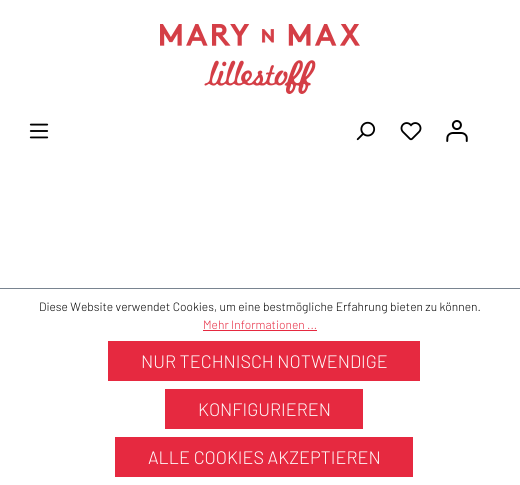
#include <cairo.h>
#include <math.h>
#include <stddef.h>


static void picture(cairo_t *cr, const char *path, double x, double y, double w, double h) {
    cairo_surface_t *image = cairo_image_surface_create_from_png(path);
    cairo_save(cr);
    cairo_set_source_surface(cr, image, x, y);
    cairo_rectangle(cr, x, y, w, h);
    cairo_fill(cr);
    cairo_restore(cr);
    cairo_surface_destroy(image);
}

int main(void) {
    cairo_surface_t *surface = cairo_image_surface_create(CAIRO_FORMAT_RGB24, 520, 485);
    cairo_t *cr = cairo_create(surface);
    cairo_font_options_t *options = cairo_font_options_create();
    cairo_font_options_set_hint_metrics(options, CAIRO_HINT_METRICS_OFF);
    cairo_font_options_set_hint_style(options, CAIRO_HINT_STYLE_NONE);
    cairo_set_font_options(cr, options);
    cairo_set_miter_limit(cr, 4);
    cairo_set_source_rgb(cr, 1, 1, 1);
    cairo_paint(cr);
    picture(cr, "img1.png", 160, 24, 200, 70);
    picture(cr, "img2.png", 29, 123, 20, 16);
    picture(cr, "img3.png", 356, 121, 20, 20);
    picture(cr, "img4.png", 400, 122, 22, 19);
    picture(cr, "img5.png", 446, 120, 22, 22);
    cairo_set_source_rgb(cr, 0.475, 0.518, 0.565);
    cairo_rectangle(cr, 0, 288, 520, 1);
    cairo_fill(cr);
    cairo_select_font_face(cr, "Barlow Light", CAIRO_FONT_SLANT_NORMAL, CAIRO_FONT_WEIGHT_NORMAL);
    cairo_set_font_size(cr, 12);
    cairo_set_source_rgb(cr, 0, 0, 0);
    cairo_move_to(cr, 39, 311);
    cairo_show_text(cr, "Diese Website verwendet Cookies, um eine bestmögliche Erfahrung bieten zu können.");
    cairo_set_source_rgb(cr, 0.902, 0.161, 0.251);
    cairo_move_to(cr, 203, 329);
    cairo_show_text(cr, "Mehr Informationen ...");
    cairo_rectangle(cr, 203, 330, 114, 1);
    cairo_fill(cr);
    cairo_rectangle(cr, 108, 341, 312, 40);
    cairo_fill(cr);
    cairo_set_font_size(cr, 18);
    cairo_set_source_rgb(cr, 1, 1, 1);
    cairo_move_to(cr, 141, 368);
    cairo_show_text(cr, "NUR TECHNISCH NOTWENDIGE");
    cairo_set_source_rgb(cr, 0.902, 0.161, 0.251);
    cairo_rectangle(cr, 165, 389, 198, 40);
    cairo_fill(cr);
    cairo_set_source_rgb(cr, 1, 1, 1);
    cairo_move_to(cr, 198, 416);
    cairo_show_text(cr, "KONFIGURIEREN");
    cairo_set_source_rgb(cr, 0.902, 0.161, 0.251);
    cairo_rectangle(cr, 115, 437, 298, 40);
    cairo_fill(cr);
    cairo_set_source_rgb(cr, 1, 1, 1);
    cairo_move_to(cr, 148, 464);
    cairo_show_text(cr, "ALLE COOKIES AKZEPTIEREN");
    cairo_surface_write_to_png(surface, "page.png");
    cairo_font_options_destroy(options);
    cairo_destroy(cr);
    cairo_surface_destroy(surface);
    return 0;
}
